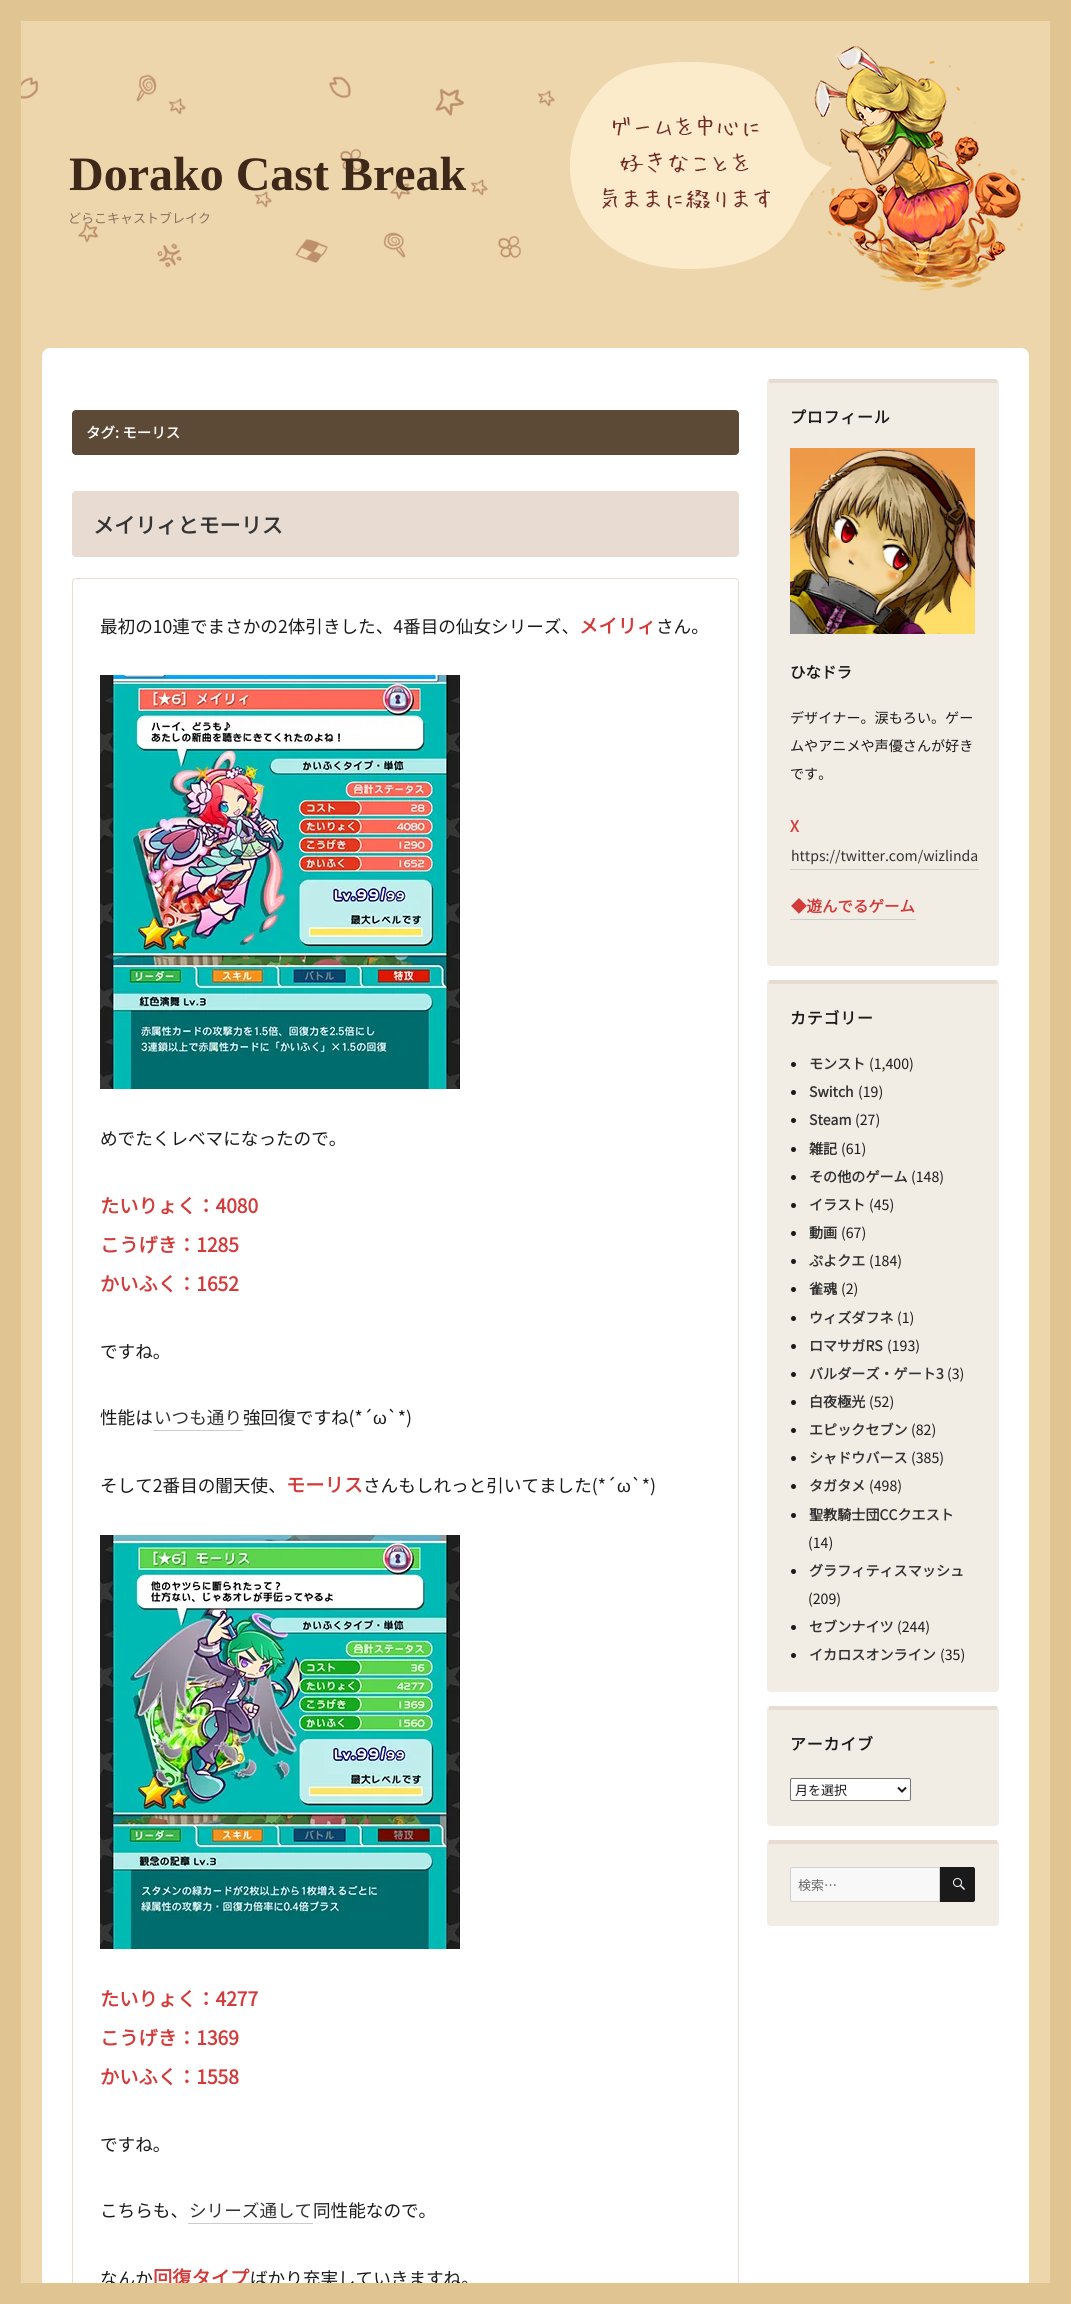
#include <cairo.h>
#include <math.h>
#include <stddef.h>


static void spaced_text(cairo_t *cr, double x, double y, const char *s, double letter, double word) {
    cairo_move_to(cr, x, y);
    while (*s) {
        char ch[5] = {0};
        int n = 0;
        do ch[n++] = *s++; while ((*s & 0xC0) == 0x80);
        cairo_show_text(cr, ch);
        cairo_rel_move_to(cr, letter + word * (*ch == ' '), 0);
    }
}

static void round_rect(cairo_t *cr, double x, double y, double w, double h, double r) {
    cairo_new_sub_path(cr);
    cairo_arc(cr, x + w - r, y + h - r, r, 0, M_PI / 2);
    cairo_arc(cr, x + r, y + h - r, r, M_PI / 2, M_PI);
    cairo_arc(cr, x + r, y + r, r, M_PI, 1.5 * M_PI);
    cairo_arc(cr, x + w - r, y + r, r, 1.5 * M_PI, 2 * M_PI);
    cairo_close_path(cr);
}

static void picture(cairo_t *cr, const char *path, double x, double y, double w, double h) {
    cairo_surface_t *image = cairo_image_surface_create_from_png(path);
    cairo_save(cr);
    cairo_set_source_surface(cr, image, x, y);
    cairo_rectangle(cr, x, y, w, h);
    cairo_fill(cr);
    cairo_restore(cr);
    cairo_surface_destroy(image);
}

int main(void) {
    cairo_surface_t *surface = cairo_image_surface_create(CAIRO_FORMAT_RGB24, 1071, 2304);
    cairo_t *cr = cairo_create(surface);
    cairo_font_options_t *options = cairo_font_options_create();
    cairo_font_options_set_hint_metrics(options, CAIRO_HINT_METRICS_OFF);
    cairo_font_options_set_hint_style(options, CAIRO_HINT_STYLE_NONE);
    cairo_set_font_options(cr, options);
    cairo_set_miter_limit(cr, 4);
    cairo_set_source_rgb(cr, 0.878, 0.773, 0.576);
    cairo_paint(cr);
    cairo_set_source_rgb(cr, 0.929, 0.839, 0.675);
    cairo_rectangle(cr, 21, 21, 1029, 2262);
    cairo_fill(cr);
    picture(cr, "img1.png", 21, 46, 1009, 245);
    cairo_select_font_face(cr, "Liberation Serif", CAIRO_FONT_SLANT_NORMAL, CAIRO_FONT_WEIGHT_BOLD);
    cairo_set_font_size(cr, 48);
    cairo_set_source_rgb(cr, 0.239, 0.157, 0.098);
    cairo_move_to(cr, 69, 190);
    cairo_show_text(cr, "Dorako Cast Break");
    cairo_select_font_face(cr, "Noto Sans JP Thin", CAIRO_FONT_SLANT_NORMAL, CAIRO_FONT_WEIGHT_NORMAL);
    cairo_set_font_size(cr, 13);
    cairo_set_source_rgb(cr, 0.545, 0.439, 0.376);
    cairo_move_to(cr, 68, 223);
    cairo_show_text(cr, "どらこキャストブレイク");
    cairo_set_source_rgb(cr, 1, 1, 1);
    round_rect(cr, 42, 348, 987, 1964, 8);
    cairo_fill(cr);
    cairo_set_source_rgb(cr, 0.361, 0.29, 0.212);
    round_rect(cr, 72, 410, 667, 45, 4);
    cairo_fill(cr);
    cairo_select_font_face(cr, "Noto Sans JP", CAIRO_FONT_SLANT_NORMAL, CAIRO_FONT_WEIGHT_BOLD);
    cairo_set_font_size(cr, 14.5);
    cairo_set_source_rgb(cr, 1, 1, 1);
    cairo_move_to(cr, 86, 438);
    cairo_show_text(cr, "タグ: モーリス");
    cairo_set_source_rgb(cr, 0.91, 0.859, 0.82);
    round_rect(cr, 72, 491, 667, 66, 4);
    cairo_fill(cr);
    cairo_set_font_size(cr, 21.1);
    cairo_set_source_rgb(cr, 0.2, 0.2, 0.2);
    cairo_move_to(cr, 93, 533);
    cairo_show_text(cr, "メイリィとモーリス");
    round_rect(cr, 72.5, 578.5, 666, 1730, 3.5);
    cairo_set_source_rgb(cr, 0.91, 0.859, 0.82);
    cairo_set_line_width(cr, 1);
    cairo_stroke(cr);
    cairo_select_font_face(cr, "Noto Sans JP Thin", CAIRO_FONT_SLANT_NORMAL, CAIRO_FONT_WEIGHT_NORMAL);
    cairo_set_font_size(cr, 17.6);
    cairo_set_source_rgb(cr, 0.102, 0.102, 0.102);
    cairo_move_to(cr, 100, 633);
    cairo_show_text(cr, "最初の10連でまさかの2体引きした、4番目の仙女シリーズ、");
    cairo_select_font_face(cr, "Noto Sans JP", CAIRO_FONT_SLANT_NORMAL, CAIRO_FONT_WEIGHT_BOLD);
    cairo_set_font_size(cr, 19.25);
    cairo_set_source_rgb(cr, 0.827, 0.227, 0.227);
    cairo_move_to(cr, 579, 633);
    cairo_show_text(cr, "メイリィ");
    cairo_select_font_face(cr, "Noto Sans JP Thin", CAIRO_FONT_SLANT_NORMAL, CAIRO_FONT_WEIGHT_NORMAL);
    cairo_set_font_size(cr, 17.6);
    cairo_set_source_rgb(cr, 0.102, 0.102, 0.102);
    cairo_move_to(cr, 656, 633);
    cairo_show_text(cr, "さん。");
    picture(cr, "img2.png", 100, 675, 360, 414);
    cairo_move_to(cr, 100, 1145);
    cairo_show_text(cr, "めでたくレベマになったので。");
    cairo_select_font_face(cr, "Noto Sans JP", CAIRO_FONT_SLANT_NORMAL, CAIRO_FONT_WEIGHT_BOLD);
    cairo_set_font_size(cr, 19.25);
    cairo_set_source_rgb(cr, 0.827, 0.227, 0.227);
    cairo_move_to(cr, 100, 1213);
    cairo_show_text(cr, "たいりょく：4080");
    cairo_move_to(cr, 100, 1252);
    cairo_show_text(cr, "こうげき：1285");
    cairo_move_to(cr, 100, 1291);
    cairo_show_text(cr, "かいふく：1652");
    cairo_select_font_face(cr, "Noto Sans JP Thin", CAIRO_FONT_SLANT_NORMAL, CAIRO_FONT_WEIGHT_NORMAL);
    cairo_set_font_size(cr, 17.6);
    cairo_set_source_rgb(cr, 0.102, 0.102, 0.102);
    cairo_move_to(cr, 100, 1358);
    cairo_show_text(cr, "ですね。");
    cairo_move_to(cr, 100, 1424);
    cairo_show_text(cr, "性能は");
    cairo_set_source_rgb(cr, 0.8, 0.8, 0.8);
    cairo_rectangle(cr, 153, 1430, 90, 1);
    cairo_fill(cr);
    cairo_set_source_rgb(cr, 0.2, 0.2, 0.2);
    cairo_move_to(cr, 154, 1424);
    cairo_show_text(cr, "いつも通り");
    cairo_set_source_rgb(cr, 0.102, 0.102, 0.102);
    cairo_move_to(cr, 243, 1424);
    cairo_show_text(cr, "強回復ですね(*´");
    cairo_select_font_face(cr, "Liberation Sans", CAIRO_FONT_SLANT_NORMAL, CAIRO_FONT_WEIGHT_NORMAL);
    cairo_move_to(cr, 373, 1424);
    cairo_show_text(cr, "ω");
    cairo_select_font_face(cr, "Noto Sans JP Thin", CAIRO_FONT_SLANT_NORMAL, CAIRO_FONT_WEIGHT_NORMAL);
    cairo_move_to(cr, 387, 1424);
    cairo_show_text(cr, "`*)");
    cairo_move_to(cr, 100, 1492);
    cairo_show_text(cr, "そして2番目の闇天使、");
    cairo_select_font_face(cr, "Noto Sans JP", CAIRO_FONT_SLANT_NORMAL, CAIRO_FONT_WEIGHT_BOLD);
    cairo_set_font_size(cr, 19.25);
    cairo_set_source_rgb(cr, 0.827, 0.227, 0.227);
    cairo_move_to(cr, 286, 1492);
    cairo_show_text(cr, "モーリス");
    cairo_select_font_face(cr, "Noto Sans JP Thin", CAIRO_FONT_SLANT_NORMAL, CAIRO_FONT_WEIGHT_NORMAL);
    cairo_set_font_size(cr, 17.6);
    cairo_set_source_rgb(cr, 0.102, 0.102, 0.102);
    cairo_move_to(cr, 363, 1492);
    cairo_show_text(cr, "さんもしれっと引いてました(*´");
    cairo_select_font_face(cr, "Liberation Sans", CAIRO_FONT_SLANT_NORMAL, CAIRO_FONT_WEIGHT_NORMAL);
    cairo_move_to(cr, 617, 1492);
    cairo_show_text(cr, "ω");
    cairo_select_font_face(cr, "Noto Sans JP Thin", CAIRO_FONT_SLANT_NORMAL, CAIRO_FONT_WEIGHT_NORMAL);
    cairo_move_to(cr, 631, 1492);
    cairo_show_text(cr, "`*)");
    picture(cr, "img3.png", 100, 1535, 360, 414);
    cairo_select_font_face(cr, "Noto Sans JP", CAIRO_FONT_SLANT_NORMAL, CAIRO_FONT_WEIGHT_BOLD);
    cairo_set_font_size(cr, 19.25);
    cairo_set_source_rgb(cr, 0.827, 0.227, 0.227);
    cairo_move_to(cr, 100, 2006);
    cairo_show_text(cr, "たいりょく：4277");
    cairo_move_to(cr, 100, 2045);
    cairo_show_text(cr, "こうげき：1369");
    cairo_move_to(cr, 100, 2084);
    cairo_show_text(cr, "かいふく：1558");
    cairo_select_font_face(cr, "Noto Sans JP Thin", CAIRO_FONT_SLANT_NORMAL, CAIRO_FONT_WEIGHT_NORMAL);
    cairo_set_font_size(cr, 17.6);
    cairo_set_source_rgb(cr, 0.102, 0.102, 0.102);
    cairo_move_to(cr, 100, 2151);
    cairo_show_text(cr, "ですね。");
    cairo_move_to(cr, 100, 2217);
    cairo_show_text(cr, "こちらも、");
    cairo_set_source_rgb(cr, 0.8, 0.8, 0.8);
    cairo_rectangle(cr, 188, 2223, 125, 1);
    cairo_fill(cr);
    cairo_set_source_rgb(cr, 0.2, 0.2, 0.2);
    cairo_move_to(cr, 189, 2217);
    cairo_show_text(cr, "シリーズ通して");
    cairo_set_source_rgb(cr, 0.102, 0.102, 0.102);
    cairo_move_to(cr, 313, 2217);
    cairo_show_text(cr, "同性能なので。");
    cairo_move_to(cr, 100, 2285);
    cairo_show_text(cr, "なんか");
    cairo_select_font_face(cr, "Noto Sans JP", CAIRO_FONT_SLANT_NORMAL, CAIRO_FONT_WEIGHT_BOLD);
    cairo_set_font_size(cr, 19.25);
    cairo_set_source_rgb(cr, 0.827, 0.227, 0.227);
    cairo_move_to(cr, 153, 2285);
    cairo_show_text(cr, "回復タイプ");
    cairo_select_font_face(cr, "Noto Sans JP Thin", CAIRO_FONT_SLANT_NORMAL, CAIRO_FONT_WEIGHT_NORMAL);
    cairo_set_font_size(cr, 17.6);
    cairo_set_source_rgb(cr, 0.102, 0.102, 0.102);
    cairo_move_to(cr, 250, 2285);
    cairo_show_text(cr, "ばかり充実していきますね。");
    cairo_set_source_rgb(cr, 0.945, 0.922, 0.894);
    round_rect(cr, 767, 379, 232, 587, 4);
    cairo_fill(cr);
    cairo_set_source_rgb(cr, 0.91, 0.859, 0.82);
    cairo_rectangle(cr, 769, 379, 228, 4);
    cairo_fill(cr);
    cairo_select_font_face(cr, "Noto Sans JP", CAIRO_FONT_SLANT_NORMAL, CAIRO_FONT_WEIGHT_BOLD);
    cairo_set_font_size(cr, 16);
    cairo_set_source_rgb(cr, 0.102, 0.102, 0.102);
    spaced_text(cr, 790, 423, "プロフィール", 0.75, 0);
    picture(cr, "img4.png", 790, 448, 185, 186);
    cairo_set_font_size(cr, 15.5);
    cairo_move_to(cr, 790, 678);
    cairo_show_text(cr, "ひなドラ");
    cairo_select_font_face(cr, "Noto Sans JP Thin", CAIRO_FONT_SLANT_NORMAL, CAIRO_FONT_WEIGHT_NORMAL);
    cairo_set_font_size(cr, 14.1);
    cairo_move_to(cr, 790, 723);
    cairo_show_text(cr, "デザイナー。涙もろい。ゲー");
    cairo_move_to(cr, 790, 751);
    cairo_show_text(cr, "ムやアニメや声優さんが好き");
    cairo_move_to(cr, 790, 779);
    cairo_show_text(cr, "です。");
    cairo_select_font_face(cr, "Noto Sans JP", CAIRO_FONT_SLANT_NORMAL, CAIRO_FONT_WEIGHT_BOLD);
    cairo_set_font_size(cr, 15.5);
    cairo_set_source_rgb(cr, 0.827, 0.227, 0.227);
    cairo_move_to(cr, 790, 832);
    cairo_show_text(cr, "X");
    cairo_set_source_rgb(cr, 0.8, 0.8, 0.8);
    cairo_rectangle(cr, 790, 869, 189, 1);
    cairo_fill(cr);
    cairo_select_font_face(cr, "Noto Sans JP Thin", CAIRO_FONT_SLANT_NORMAL, CAIRO_FONT_WEIGHT_NORMAL);
    cairo_set_font_size(cr, 14.1);
    cairo_set_source_rgb(cr, 0.2, 0.2, 0.2);
    cairo_move_to(cr, 791, 861);
    cairo_show_text(cr, "https://twitter.com/wizlinda");
    cairo_set_source_rgb(cr, 0.8, 0.8, 0.8);
    cairo_rectangle(cr, 790, 919, 126, 1);
    cairo_fill(cr);
    cairo_select_font_face(cr, "Noto Sans JP", CAIRO_FONT_SLANT_NORMAL, CAIRO_FONT_WEIGHT_BOLD);
    cairo_set_font_size(cr, 15.5);
    cairo_set_source_rgb(cr, 0.827, 0.227, 0.227);
    cairo_move_to(cr, 791, 912);
    cairo_show_text(cr, "◆遊んでるゲーム");
    cairo_set_source_rgb(cr, 0.945, 0.922, 0.894);
    round_rect(cr, 767, 980, 232, 712, 4);
    cairo_fill(cr);
    cairo_set_source_rgb(cr, 0.91, 0.859, 0.82);
    cairo_rectangle(cr, 769, 980, 228, 4);
    cairo_fill(cr);
    cairo_set_font_size(cr, 16);
    cairo_set_source_rgb(cr, 0.102, 0.102, 0.102);
    spaced_text(cr, 790, 1024, "カテゴリー", 0.75, 0);
    cairo_new_path(cr);
    cairo_arc(cr, 793.5, 1064.5, 2.5, 0, 2 * M_PI);
    cairo_fill(cr);
    cairo_set_font_size(cr, 14.1);
    cairo_set_source_rgb(cr, 0.2, 0.2, 0.2);
    cairo_move_to(cr, 809, 1069);
    cairo_show_text(cr, "モンスト");
    cairo_select_font_face(cr, "Noto Sans JP Thin", CAIRO_FONT_SLANT_NORMAL, CAIRO_FONT_WEIGHT_NORMAL);
    cairo_set_source_rgb(cr, 0.102, 0.102, 0.102);
    cairo_move_to(cr, 869, 1069);
    cairo_show_text(cr, "(1,400)");
    cairo_new_path(cr);
    cairo_arc(cr, 793.5, 1092.5, 2.5, 0, 2 * M_PI);
    cairo_fill(cr);
    cairo_select_font_face(cr, "Noto Sans JP", CAIRO_FONT_SLANT_NORMAL, CAIRO_FONT_WEIGHT_BOLD);
    cairo_set_source_rgb(cr, 0.2, 0.2, 0.2);
    cairo_move_to(cr, 809, 1097);
    cairo_show_text(cr, "Switch");
    cairo_select_font_face(cr, "Noto Sans JP Thin", CAIRO_FONT_SLANT_NORMAL, CAIRO_FONT_WEIGHT_NORMAL);
    cairo_set_source_rgb(cr, 0.102, 0.102, 0.102);
    cairo_move_to(cr, 858, 1097);
    cairo_show_text(cr, "(19)");
    cairo_new_path(cr);
    cairo_arc(cr, 793.5, 1120.5, 2.5, 0, 2 * M_PI);
    cairo_fill(cr);
    cairo_select_font_face(cr, "Noto Sans JP", CAIRO_FONT_SLANT_NORMAL, CAIRO_FONT_WEIGHT_BOLD);
    cairo_set_source_rgb(cr, 0.2, 0.2, 0.2);
    cairo_move_to(cr, 809, 1125);
    cairo_show_text(cr, "Steam");
    cairo_select_font_face(cr, "Noto Sans JP Thin", CAIRO_FONT_SLANT_NORMAL, CAIRO_FONT_WEIGHT_NORMAL);
    cairo_set_source_rgb(cr, 0.102, 0.102, 0.102);
    cairo_move_to(cr, 855, 1125);
    cairo_show_text(cr, "(27)");
    cairo_new_path(cr);
    cairo_arc(cr, 793.5, 1149.5, 2.5, 0, 2 * M_PI);
    cairo_fill(cr);
    cairo_select_font_face(cr, "Noto Sans JP", CAIRO_FONT_SLANT_NORMAL, CAIRO_FONT_WEIGHT_BOLD);
    cairo_set_source_rgb(cr, 0.2, 0.2, 0.2);
    cairo_move_to(cr, 809, 1154);
    cairo_show_text(cr, "雑記");
    cairo_select_font_face(cr, "Noto Sans JP Thin", CAIRO_FONT_SLANT_NORMAL, CAIRO_FONT_WEIGHT_NORMAL);
    cairo_set_source_rgb(cr, 0.102, 0.102, 0.102);
    cairo_move_to(cr, 841, 1154);
    cairo_show_text(cr, "(61)");
    cairo_new_path(cr);
    cairo_arc(cr, 793.5, 1177.5, 2.5, 0, 2 * M_PI);
    cairo_fill(cr);
    cairo_select_font_face(cr, "Noto Sans JP", CAIRO_FONT_SLANT_NORMAL, CAIRO_FONT_WEIGHT_BOLD);
    cairo_set_source_rgb(cr, 0.2, 0.2, 0.2);
    cairo_move_to(cr, 809, 1182);
    cairo_show_text(cr, "その他のゲーム");
    cairo_select_font_face(cr, "Noto Sans JP Thin", CAIRO_FONT_SLANT_NORMAL, CAIRO_FONT_WEIGHT_NORMAL);
    cairo_set_source_rgb(cr, 0.102, 0.102, 0.102);
    cairo_move_to(cr, 911, 1182);
    cairo_show_text(cr, "(148)");
    cairo_new_path(cr);
    cairo_arc(cr, 793.5, 1205.5, 2.5, 0, 2 * M_PI);
    cairo_fill(cr);
    cairo_select_font_face(cr, "Noto Sans JP", CAIRO_FONT_SLANT_NORMAL, CAIRO_FONT_WEIGHT_BOLD);
    cairo_set_source_rgb(cr, 0.2, 0.2, 0.2);
    cairo_move_to(cr, 809, 1210);
    cairo_show_text(cr, "イラスト");
    cairo_select_font_face(cr, "Noto Sans JP Thin", CAIRO_FONT_SLANT_NORMAL, CAIRO_FONT_WEIGHT_NORMAL);
    cairo_set_source_rgb(cr, 0.102, 0.102, 0.102);
    cairo_move_to(cr, 869, 1210);
    cairo_show_text(cr, "(45)");
    cairo_new_path(cr);
    cairo_arc(cr, 793.5, 1233.5, 2.5, 0, 2 * M_PI);
    cairo_fill(cr);
    cairo_select_font_face(cr, "Noto Sans JP", CAIRO_FONT_SLANT_NORMAL, CAIRO_FONT_WEIGHT_BOLD);
    cairo_set_source_rgb(cr, 0.2, 0.2, 0.2);
    cairo_move_to(cr, 809, 1238);
    cairo_show_text(cr, "動画");
    cairo_select_font_face(cr, "Noto Sans JP Thin", CAIRO_FONT_SLANT_NORMAL, CAIRO_FONT_WEIGHT_NORMAL);
    cairo_set_source_rgb(cr, 0.102, 0.102, 0.102);
    cairo_move_to(cr, 841, 1238);
    cairo_show_text(cr, "(67)");
    cairo_new_path(cr);
    cairo_arc(cr, 793.5, 1261.5, 2.5, 0, 2 * M_PI);
    cairo_fill(cr);
    cairo_select_font_face(cr, "Noto Sans JP", CAIRO_FONT_SLANT_NORMAL, CAIRO_FONT_WEIGHT_BOLD);
    cairo_set_source_rgb(cr, 0.2, 0.2, 0.2);
    cairo_move_to(cr, 809, 1266);
    cairo_show_text(cr, "ぷよクエ");
    cairo_select_font_face(cr, "Noto Sans JP Thin", CAIRO_FONT_SLANT_NORMAL, CAIRO_FONT_WEIGHT_NORMAL);
    cairo_set_source_rgb(cr, 0.102, 0.102, 0.102);
    cairo_move_to(cr, 869, 1266);
    cairo_show_text(cr, "(184)");
    cairo_new_path(cr);
    cairo_arc(cr, 793.5, 1289.5, 2.5, 0, 2 * M_PI);
    cairo_fill(cr);
    cairo_select_font_face(cr, "Noto Sans JP", CAIRO_FONT_SLANT_NORMAL, CAIRO_FONT_WEIGHT_BOLD);
    cairo_set_source_rgb(cr, 0.2, 0.2, 0.2);
    cairo_move_to(cr, 809, 1294);
    cairo_show_text(cr, "雀魂");
    cairo_select_font_face(cr, "Noto Sans JP Thin", CAIRO_FONT_SLANT_NORMAL, CAIRO_FONT_WEIGHT_NORMAL);
    cairo_set_source_rgb(cr, 0.102, 0.102, 0.102);
    cairo_move_to(cr, 841, 1294);
    cairo_show_text(cr, "(2)");
    cairo_new_path(cr);
    cairo_arc(cr, 793.5, 1318.5, 2.5, 0, 2 * M_PI);
    cairo_fill(cr);
    cairo_select_font_face(cr, "Noto Sans JP", CAIRO_FONT_SLANT_NORMAL, CAIRO_FONT_WEIGHT_BOLD);
    cairo_set_source_rgb(cr, 0.2, 0.2, 0.2);
    cairo_move_to(cr, 809, 1323);
    cairo_show_text(cr, "ウィズダフネ");
    cairo_select_font_face(cr, "Noto Sans JP Thin", CAIRO_FONT_SLANT_NORMAL, CAIRO_FONT_WEIGHT_NORMAL);
    cairo_set_source_rgb(cr, 0.102, 0.102, 0.102);
    cairo_move_to(cr, 897, 1323);
    cairo_show_text(cr, "(1)");
    cairo_new_path(cr);
    cairo_arc(cr, 793.5, 1346.5, 2.5, 0, 2 * M_PI);
    cairo_fill(cr);
    cairo_select_font_face(cr, "Noto Sans JP", CAIRO_FONT_SLANT_NORMAL, CAIRO_FONT_WEIGHT_BOLD);
    cairo_set_source_rgb(cr, 0.2, 0.2, 0.2);
    cairo_move_to(cr, 809, 1351);
    cairo_show_text(cr, "ロマサガRS");
    cairo_select_font_face(cr, "Noto Sans JP Thin", CAIRO_FONT_SLANT_NORMAL, CAIRO_FONT_WEIGHT_NORMAL);
    cairo_set_source_rgb(cr, 0.102, 0.102, 0.102);
    cairo_move_to(cr, 887, 1351);
    cairo_show_text(cr, "(193)");
    cairo_new_path(cr);
    cairo_arc(cr, 793.5, 1374.5, 2.5, 0, 2 * M_PI);
    cairo_fill(cr);
    cairo_select_font_face(cr, "Noto Sans JP", CAIRO_FONT_SLANT_NORMAL, CAIRO_FONT_WEIGHT_BOLD);
    cairo_set_source_rgb(cr, 0.2, 0.2, 0.2);
    cairo_move_to(cr, 809, 1379);
    cairo_show_text(cr, "バルダーズ・ゲート3");
    cairo_select_font_face(cr, "Noto Sans JP Thin", CAIRO_FONT_SLANT_NORMAL, CAIRO_FONT_WEIGHT_NORMAL);
    cairo_set_source_rgb(cr, 0.102, 0.102, 0.102);
    cairo_move_to(cr, 947, 1379);
    cairo_show_text(cr, "(3)");
    cairo_new_path(cr);
    cairo_arc(cr, 793.5, 1402.5, 2.5, 0, 2 * M_PI);
    cairo_fill(cr);
    cairo_select_font_face(cr, "Noto Sans JP", CAIRO_FONT_SLANT_NORMAL, CAIRO_FONT_WEIGHT_BOLD);
    cairo_set_source_rgb(cr, 0.2, 0.2, 0.2);
    cairo_move_to(cr, 809, 1407);
    cairo_show_text(cr, "白夜極光");
    cairo_select_font_face(cr, "Noto Sans JP Thin", CAIRO_FONT_SLANT_NORMAL, CAIRO_FONT_WEIGHT_NORMAL);
    cairo_set_source_rgb(cr, 0.102, 0.102, 0.102);
    cairo_move_to(cr, 869, 1407);
    cairo_show_text(cr, "(52)");
    cairo_new_path(cr);
    cairo_arc(cr, 793.5, 1430.5, 2.5, 0, 2 * M_PI);
    cairo_fill(cr);
    cairo_select_font_face(cr, "Noto Sans JP", CAIRO_FONT_SLANT_NORMAL, CAIRO_FONT_WEIGHT_BOLD);
    cairo_set_source_rgb(cr, 0.2, 0.2, 0.2);
    cairo_move_to(cr, 809, 1435);
    cairo_show_text(cr, "エピックセブン");
    cairo_select_font_face(cr, "Noto Sans JP Thin", CAIRO_FONT_SLANT_NORMAL, CAIRO_FONT_WEIGHT_NORMAL);
    cairo_set_source_rgb(cr, 0.102, 0.102, 0.102);
    cairo_move_to(cr, 911, 1435);
    cairo_show_text(cr, "(82)");
    cairo_new_path(cr);
    cairo_arc(cr, 793.5, 1458.5, 2.5, 0, 2 * M_PI);
    cairo_fill(cr);
    cairo_select_font_face(cr, "Noto Sans JP", CAIRO_FONT_SLANT_NORMAL, CAIRO_FONT_WEIGHT_BOLD);
    cairo_set_source_rgb(cr, 0.2, 0.2, 0.2);
    cairo_move_to(cr, 809, 1463);
    cairo_show_text(cr, "シャドウバース");
    cairo_select_font_face(cr, "Noto Sans JP Thin", CAIRO_FONT_SLANT_NORMAL, CAIRO_FONT_WEIGHT_NORMAL);
    cairo_set_source_rgb(cr, 0.102, 0.102, 0.102);
    cairo_move_to(cr, 911, 1463);
    cairo_show_text(cr, "(385)");
    cairo_new_path(cr);
    cairo_arc(cr, 793.5, 1486.5, 2.5, 0, 2 * M_PI);
    cairo_fill(cr);
    cairo_select_font_face(cr, "Noto Sans JP", CAIRO_FONT_SLANT_NORMAL, CAIRO_FONT_WEIGHT_BOLD);
    cairo_set_source_rgb(cr, 0.2, 0.2, 0.2);
    cairo_move_to(cr, 809, 1491);
    cairo_show_text(cr, "タガタメ");
    cairo_select_font_face(cr, "Noto Sans JP Thin", CAIRO_FONT_SLANT_NORMAL, CAIRO_FONT_WEIGHT_NORMAL);
    cairo_set_source_rgb(cr, 0.102, 0.102, 0.102);
    cairo_move_to(cr, 869, 1491);
    cairo_show_text(cr, "(498)");
    cairo_new_path(cr);
    cairo_arc(cr, 793.5, 1515.5, 2.5, 0, 2 * M_PI);
    cairo_fill(cr);
    cairo_select_font_face(cr, "Noto Sans JP", CAIRO_FONT_SLANT_NORMAL, CAIRO_FONT_WEIGHT_BOLD);
    cairo_set_source_rgb(cr, 0.2, 0.2, 0.2);
    cairo_move_to(cr, 809, 1520);
    cairo_show_text(cr, "聖教騎士団CCクエスト");
    cairo_select_font_face(cr, "Noto Sans JP Thin", CAIRO_FONT_SLANT_NORMAL, CAIRO_FONT_WEIGHT_NORMAL);
    cairo_set_source_rgb(cr, 0.102, 0.102, 0.102);
    cairo_move_to(cr, 808, 1548);
    cairo_show_text(cr, "(14)");
    cairo_new_path(cr);
    cairo_arc(cr, 793.5, 1571.5, 2.5, 0, 2 * M_PI);
    cairo_fill(cr);
    cairo_select_font_face(cr, "Noto Sans JP", CAIRO_FONT_SLANT_NORMAL, CAIRO_FONT_WEIGHT_BOLD);
    cairo_set_source_rgb(cr, 0.2, 0.2, 0.2);
    cairo_move_to(cr, 809, 1576);
    cairo_show_text(cr, "グラフィティスマッシュ");
    cairo_select_font_face(cr, "Noto Sans JP Thin", CAIRO_FONT_SLANT_NORMAL, CAIRO_FONT_WEIGHT_NORMAL);
    cairo_set_source_rgb(cr, 0.102, 0.102, 0.102);
    cairo_move_to(cr, 808, 1604);
    cairo_show_text(cr, "(209)");
    cairo_new_path(cr);
    cairo_arc(cr, 793.5, 1627.5, 2.5, 0, 2 * M_PI);
    cairo_fill(cr);
    cairo_select_font_face(cr, "Noto Sans JP", CAIRO_FONT_SLANT_NORMAL, CAIRO_FONT_WEIGHT_BOLD);
    cairo_set_source_rgb(cr, 0.2, 0.2, 0.2);
    cairo_move_to(cr, 809, 1632);
    cairo_show_text(cr, "セブンナイツ");
    cairo_select_font_face(cr, "Noto Sans JP Thin", CAIRO_FONT_SLANT_NORMAL, CAIRO_FONT_WEIGHT_NORMAL);
    cairo_set_source_rgb(cr, 0.102, 0.102, 0.102);
    cairo_move_to(cr, 897, 1632);
    cairo_show_text(cr, "(244)");
    cairo_new_path(cr);
    cairo_arc(cr, 793.5, 1655.5, 2.5, 0, 2 * M_PI);
    cairo_fill(cr);
    cairo_select_font_face(cr, "Noto Sans JP", CAIRO_FONT_SLANT_NORMAL, CAIRO_FONT_WEIGHT_BOLD);
    cairo_set_source_rgb(cr, 0.2, 0.2, 0.2);
    cairo_move_to(cr, 809, 1660);
    cairo_show_text(cr, "イカロスオンライン");
    cairo_select_font_face(cr, "Noto Sans JP Thin", CAIRO_FONT_SLANT_NORMAL, CAIRO_FONT_WEIGHT_NORMAL);
    cairo_set_source_rgb(cr, 0.102, 0.102, 0.102);
    cairo_move_to(cr, 940, 1660);
    cairo_show_text(cr, "(35)");
    cairo_set_source_rgb(cr, 0.945, 0.922, 0.894);
    round_rect(cr, 767, 1706, 232, 120, 4);
    cairo_fill(cr);
    cairo_set_source_rgb(cr, 0.91, 0.859, 0.82);
    cairo_rectangle(cr, 769, 1706, 228, 4);
    cairo_fill(cr);
    cairo_select_font_face(cr, "Noto Sans JP", CAIRO_FONT_SLANT_NORMAL, CAIRO_FONT_WEIGHT_BOLD);
    cairo_set_font_size(cr, 16);
    cairo_set_source_rgb(cr, 0.102, 0.102, 0.102);
    spaced_text(cr, 790, 1750, "アーカイブ", 0.75, 0);
    cairo_set_source_rgb(cr, 1, 1, 1);
    round_rect(cr, 790.5, 1778.5, 120, 22, 1.5);
    cairo_fill_preserve(cr);
    cairo_set_source_rgb(cr, 0.463, 0.463, 0.463);
    cairo_stroke(cr);
    cairo_new_path(cr);
    cairo_move_to(cr, 898, 1787.5);
    cairo_line_to(cr, 902, 1791.5);
    cairo_line_to(cr, 906, 1787.5);
    cairo_set_source_rgb(cr, 0.102, 0.102, 0.102);
    cairo_set_line_width(cr, 2);
    cairo_stroke(cr);
    cairo_select_font_face(cr, "Noto Sans JP Thin", CAIRO_FONT_SLANT_NORMAL, CAIRO_FONT_WEIGHT_NORMAL);
    cairo_set_font_size(cr, 13);
    cairo_move_to(cr, 795, 1795);
    cairo_show_text(cr, "月を選択");
    cairo_set_source_rgb(cr, 0.945, 0.922, 0.894);
    round_rect(cr, 767, 1840, 232, 86, 4);
    cairo_fill(cr);
    cairo_set_source_rgb(cr, 0.91, 0.859, 0.82);
    cairo_rectangle(cr, 769, 1840, 228, 4);
    cairo_fill(cr);
    cairo_set_source_rgb(cr, 0.969, 0.969, 0.969);
    cairo_new_path(cr);
    cairo_move_to(cr, 792, 1867.5);
    cairo_line_to(cr, 939.5, 1867.5);
    cairo_line_to(cr, 939.5, 1901.5);
    cairo_line_to(cr, 792, 1901.5);
    cairo_curve_to(cr, 791, 1901.5, 790.5, 1901, 790.5, 1900);
    cairo_line_to(cr, 790.5, 1869);
    cairo_curve_to(cr, 790.5, 1868, 791, 1867.5, 792, 1867.5);
    cairo_close_path(cr);
    cairo_fill_preserve(cr);
    cairo_set_source_rgb(cr, 0.82, 0.82, 0.82);
    cairo_set_line_width(cr, 1);
    cairo_stroke(cr);
    cairo_set_source_rgb(cr, 0.408, 0.408, 0.408);
    cairo_move_to(cr, 798, 1890);
    cairo_show_text(cr, "検索…");
    cairo_set_source_rgb(cr, 0.102, 0.102, 0.102);
    cairo_new_path(cr);
    cairo_move_to(cr, 940, 1867);
    cairo_line_to(cr, 973, 1867);
    cairo_curve_to(cr, 974, 1867, 975, 1868, 975, 1869);
    cairo_line_to(cr, 975, 1900);
    cairo_curve_to(cr, 975, 1901, 974, 1902, 973, 1902);
    cairo_line_to(cr, 940, 1902);
    cairo_close_path(cr);
    cairo_fill(cr);
    picture(cr, "img5.png", 953, 1878, 12, 12);
    cairo_set_source_rgb(cr, 0.878, 0.773, 0.576);
    cairo_rectangle(cr, 42, 2283, 987, 21);
    cairo_fill(cr);
    cairo_surface_write_to_png(surface, "page.png");
    cairo_font_options_destroy(options);
    cairo_destroy(cr);
    cairo_surface_destroy(surface);
    return 0;
}
